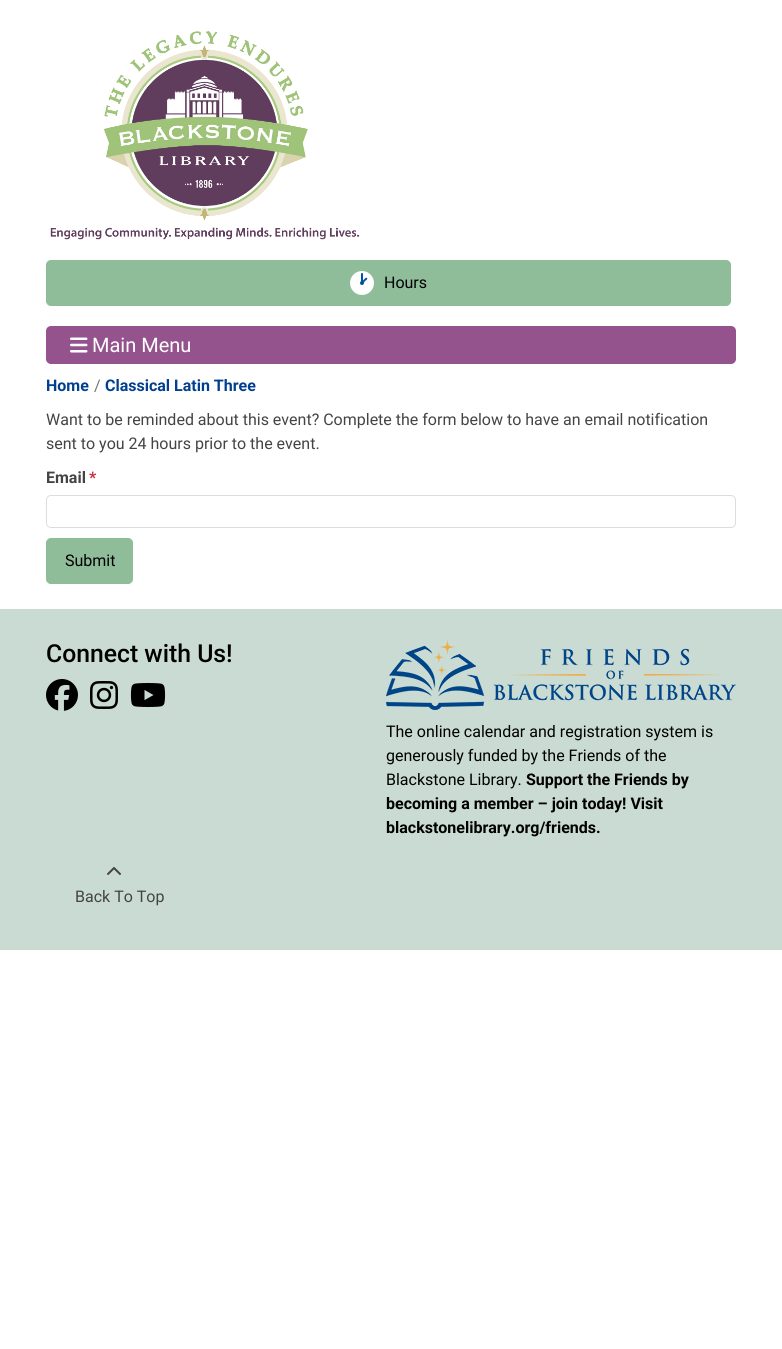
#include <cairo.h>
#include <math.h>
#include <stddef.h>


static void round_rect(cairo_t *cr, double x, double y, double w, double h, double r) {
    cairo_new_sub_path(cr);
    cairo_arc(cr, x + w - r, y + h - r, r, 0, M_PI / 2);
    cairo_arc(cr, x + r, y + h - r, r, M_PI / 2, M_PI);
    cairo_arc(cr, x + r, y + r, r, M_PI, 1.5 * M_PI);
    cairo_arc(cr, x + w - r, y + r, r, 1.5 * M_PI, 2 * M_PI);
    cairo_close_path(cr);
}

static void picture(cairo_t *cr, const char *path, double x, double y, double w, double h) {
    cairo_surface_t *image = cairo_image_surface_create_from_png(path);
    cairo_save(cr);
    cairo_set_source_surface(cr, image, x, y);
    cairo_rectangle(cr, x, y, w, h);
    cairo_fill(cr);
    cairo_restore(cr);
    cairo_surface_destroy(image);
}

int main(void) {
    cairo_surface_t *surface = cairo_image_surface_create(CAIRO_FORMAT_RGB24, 782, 1349);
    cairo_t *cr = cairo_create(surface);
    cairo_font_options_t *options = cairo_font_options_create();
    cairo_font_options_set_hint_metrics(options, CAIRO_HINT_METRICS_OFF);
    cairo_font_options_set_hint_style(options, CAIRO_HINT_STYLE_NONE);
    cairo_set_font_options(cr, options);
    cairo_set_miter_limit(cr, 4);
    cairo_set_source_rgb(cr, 1, 1, 1);
    cairo_paint(cr);
    picture(cr, "img1.png", 50, 31, 310, 209);
    cairo_set_source_rgb(cr, 0.561, 0.737, 0.6);
    round_rect(cr, 46.5, 260.5, 684, 45, 4.5);
    cairo_fill_preserve(cr);
    cairo_set_line_width(cr, 1);
    cairo_stroke(cr);
    cairo_set_source_rgb(cr, 0, 0.329, 0.624);
    cairo_arc(cr, 362, 283, 7, 0, 2 * M_PI);
    cairo_fill_preserve(cr);
    cairo_set_source_rgb(cr, 1, 1, 1);
    cairo_set_line_width(cr, 10);
    cairo_stroke(cr);
    cairo_set_source_rgb(cr, 0, 0.329, 0.624);
    round_rect(cr, 361, 273, 2, 10, 1);
    cairo_fill(cr);
    cairo_new_path(cr);
    cairo_move_to(cr, 367, 278);
    cairo_curve_to(cr, 368, 279, 366, 280.5, 365, 281);
    cairo_curve_to(cr, 364.5, 282, 363, 284, 362, 283);
    cairo_curve_to(cr, 361, 282, 363, 280.5, 363.5, 280);
    cairo_curve_to(cr, 364.5, 279, 366, 277, 367, 278);
    cairo_close_path(cr);
    cairo_fill(cr);
    cairo_select_font_face(cr, "Roboto", CAIRO_FONT_SLANT_NORMAL, CAIRO_FONT_WEIGHT_NORMAL);
    cairo_set_font_size(cr, 16);
    cairo_set_source_rgb(cr, 0, 0, 0);
    cairo_move_to(cr, 384, 288);
    cairo_show_text(cr, "Hours");
    cairo_set_source_rgb(cr, 0.584, 0.325, 0.557);
    round_rect(cr, 46, 326, 690, 38, 5);
    cairo_fill(cr);
    picture(cr, "img2.png", 70, 337, 18, 16);
    cairo_set_font_size(cr, 20);
    cairo_set_source_rgb(cr, 1, 1, 1);
    cairo_move_to(cr, 92, 352);
    cairo_show_text(cr, "Main Menu");
    cairo_select_font_face(cr, "Roboto", CAIRO_FONT_SLANT_NORMAL, CAIRO_FONT_WEIGHT_BOLD);
    cairo_set_font_size(cr, 16);
    cairo_set_source_rgb(cr, 0.004, 0.247, 0.561);
    cairo_move_to(cr, 46, 391);
    cairo_show_text(cr, "Home");
    cairo_select_font_face(cr, "Roboto", CAIRO_FONT_SLANT_NORMAL, CAIRO_FONT_WEIGHT_NORMAL);
    cairo_set_source_rgb(cr, 0.451, 0.451, 0.451);
    cairo_move_to(cr, 94, 391);
    cairo_show_text(cr, "/");
    cairo_select_font_face(cr, "Roboto", CAIRO_FONT_SLANT_NORMAL, CAIRO_FONT_WEIGHT_BOLD);
    cairo_set_source_rgb(cr, 0.004, 0.247, 0.561);
    cairo_move_to(cr, 105, 391);
    cairo_show_text(cr, "Classical Latin Three");
    cairo_select_font_face(cr, "Roboto", CAIRO_FONT_SLANT_NORMAL, CAIRO_FONT_WEIGHT_NORMAL);
    cairo_set_source_rgb(cr, 0.267, 0.267, 0.267);
    cairo_move_to(cr, 46, 425);
    cairo_show_text(cr, "Want to be reminded about this event? Complete the form below to have an email notification");
    cairo_move_to(cr, 46, 449);
    cairo_show_text(cr, "sent to you 24 hours prior to the event.");
    cairo_select_font_face(cr, "Roboto", CAIRO_FONT_SLANT_NORMAL, CAIRO_FONT_WEIGHT_BOLD);
    cairo_move_to(cr, 46, 483);
    cairo_show_text(cr, "Email");
    cairo_set_source_rgb(cr, 0.761, 0.184, 0.231);
    cairo_move_to(cr, 89, 483);
    cairo_show_text(cr, "*");
    round_rect(cr, 46.5, 495.5, 689, 32, 4.5);
    cairo_set_source_rgb(cr, 0.867, 0.867, 0.867);
    cairo_set_line_width(cr, 1);
    cairo_stroke(cr);
    cairo_set_source_rgb(cr, 0.561, 0.737, 0.6);
    round_rect(cr, 46.5, 538.5, 86, 45, 4.5);
    cairo_fill_preserve(cr);
    cairo_stroke(cr);
    cairo_select_font_face(cr, "Roboto", CAIRO_FONT_SLANT_NORMAL, CAIRO_FONT_WEIGHT_NORMAL);
    cairo_set_source_rgb(cr, 0, 0, 0);
    cairo_move_to(cr, 65, 566);
    cairo_show_text(cr, "Submit");
    cairo_set_source_rgb(cr, 0.792, 0.859, 0.827);
    cairo_rectangle(cr, 0, 609, 782, 341);
    cairo_fill(cr);
    cairo_select_font_face(cr, "Roboto Medium", CAIRO_FONT_SLANT_NORMAL, CAIRO_FONT_WEIGHT_NORMAL);
    cairo_set_font_size(cr, 24.75);
    cairo_set_source_rgb(cr, 0, 0, 0);
    cairo_move_to(cr, 46, 662);
    cairo_show_text(cr, "Connect with Us!");
    picture(cr, "img3.png", 46, 679, 32, 32);
    picture(cr, "img4.png", 90, 681, 28, 28);
    picture(cr, "img5.png", 130, 683, 36, 24);
    picture(cr, "img6.png", 386, 639, 350, 71);
    cairo_select_font_face(cr, "Roboto", CAIRO_FONT_SLANT_NORMAL, CAIRO_FONT_WEIGHT_NORMAL);
    cairo_set_font_size(cr, 16);
    cairo_move_to(cr, 386, 737);
    cairo_show_text(cr, "The online calendar and registration system is");
    cairo_move_to(cr, 386, 761);
    cairo_show_text(cr, "generously funded by the Friends of the");
    cairo_move_to(cr, 386, 785);
    cairo_show_text(cr, "Blackstone Library.");
    cairo_select_font_face(cr, "Roboto", CAIRO_FONT_SLANT_NORMAL, CAIRO_FONT_WEIGHT_BOLD);
    cairo_move_to(cr, 526, 785);
    cairo_show_text(cr, "Support the Friends by");
    cairo_move_to(cr, 386, 809);
    cairo_show_text(cr, "becoming a member – join today! Visit");
    cairo_move_to(cr, 386, 833);
    cairo_show_text(cr, "blackstonelibrary.org/friends.");
    picture(cr, "img7.png", 107, 867, 14, 8);
    cairo_select_font_face(cr, "Roboto", CAIRO_FONT_SLANT_NORMAL, CAIRO_FONT_WEIGHT_NORMAL);
    cairo_set_source_rgb(cr, 0.267, 0.267, 0.267);
    cairo_move_to(cr, 75, 902);
    cairo_show_text(cr, "Back To Top");
    cairo_surface_write_to_png(surface, "page.png");
    cairo_font_options_destroy(options);
    cairo_destroy(cr);
    cairo_surface_destroy(surface);
    return 0;
}
